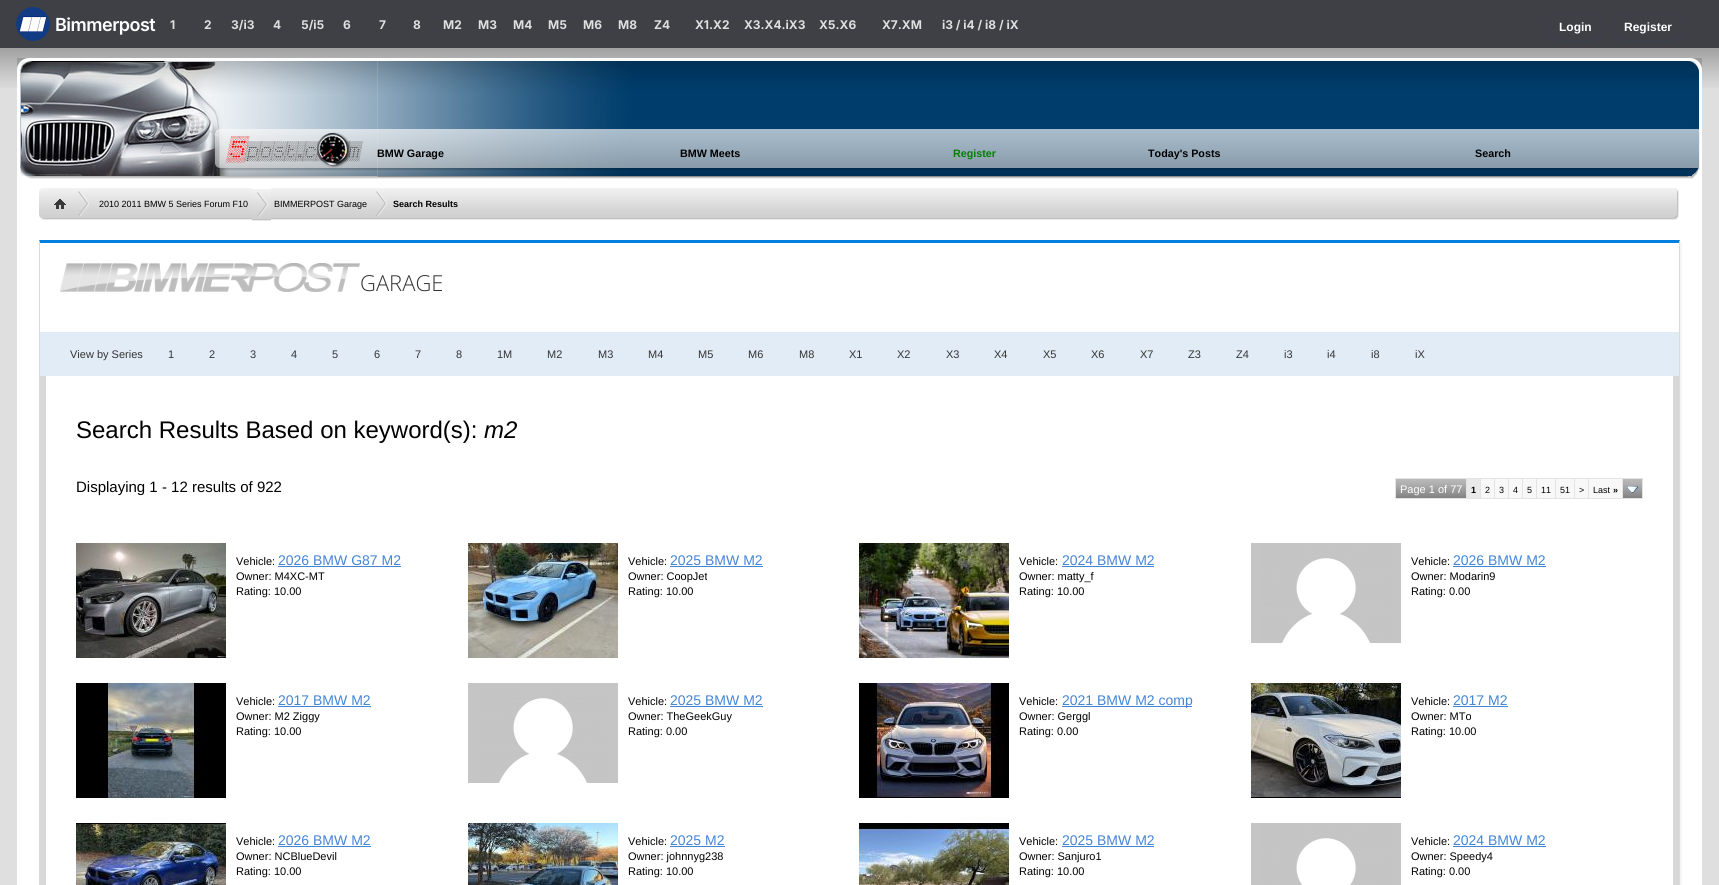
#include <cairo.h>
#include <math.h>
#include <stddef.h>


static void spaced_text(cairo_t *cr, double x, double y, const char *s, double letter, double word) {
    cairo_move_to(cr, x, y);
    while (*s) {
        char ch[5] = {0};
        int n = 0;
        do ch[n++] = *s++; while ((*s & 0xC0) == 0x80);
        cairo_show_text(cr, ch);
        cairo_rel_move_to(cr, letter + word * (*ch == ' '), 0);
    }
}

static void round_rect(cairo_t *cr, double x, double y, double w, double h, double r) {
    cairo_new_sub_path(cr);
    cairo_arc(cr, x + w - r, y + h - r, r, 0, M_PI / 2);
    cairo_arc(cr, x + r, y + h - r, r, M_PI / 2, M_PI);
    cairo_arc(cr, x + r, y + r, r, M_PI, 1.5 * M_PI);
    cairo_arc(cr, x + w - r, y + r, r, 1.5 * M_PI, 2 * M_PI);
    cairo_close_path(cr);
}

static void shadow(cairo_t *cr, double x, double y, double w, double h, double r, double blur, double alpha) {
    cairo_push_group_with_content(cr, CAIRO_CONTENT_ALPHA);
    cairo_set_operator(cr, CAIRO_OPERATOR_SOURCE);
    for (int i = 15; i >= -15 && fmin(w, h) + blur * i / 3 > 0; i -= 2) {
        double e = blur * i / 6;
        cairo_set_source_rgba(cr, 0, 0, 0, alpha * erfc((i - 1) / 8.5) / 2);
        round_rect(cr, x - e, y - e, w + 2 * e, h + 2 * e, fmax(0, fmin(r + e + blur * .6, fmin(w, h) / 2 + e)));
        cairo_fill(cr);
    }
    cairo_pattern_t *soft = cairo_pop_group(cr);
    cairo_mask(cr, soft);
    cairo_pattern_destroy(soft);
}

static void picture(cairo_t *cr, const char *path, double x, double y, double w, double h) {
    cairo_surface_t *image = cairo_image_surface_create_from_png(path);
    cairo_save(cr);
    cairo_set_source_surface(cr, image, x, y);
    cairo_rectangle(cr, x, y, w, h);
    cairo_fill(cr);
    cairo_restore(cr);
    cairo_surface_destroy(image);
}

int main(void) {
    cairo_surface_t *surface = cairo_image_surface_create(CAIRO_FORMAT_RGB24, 1719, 885);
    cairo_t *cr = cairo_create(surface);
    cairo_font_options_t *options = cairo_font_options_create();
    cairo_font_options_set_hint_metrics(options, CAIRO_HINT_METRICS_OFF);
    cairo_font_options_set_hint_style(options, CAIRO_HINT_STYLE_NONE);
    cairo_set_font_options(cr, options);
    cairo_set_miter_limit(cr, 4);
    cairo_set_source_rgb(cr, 0.875, 0.875, 0.875);
    cairo_paint(cr);
    picture(cr, "img1.png", 0, 48, 1719, 40);
    cairo_set_source_rgb(cr, 0.243, 0.251, 0.275);
    cairo_rectangle(cr, 0, 0, 1719, 48);
    cairo_fill(cr);
    picture(cr, "img2.png", 16, 7, 34, 34);
    cairo_select_font_face(cr, "Inter SemiBold", CAIRO_FONT_SLANT_NORMAL, CAIRO_FONT_WEIGHT_NORMAL);
    cairo_set_font_size(cr, 18);
    cairo_set_source_rgb(cr, 1, 1, 1);
    spaced_text(cr, 55, 31, "Bimmerpost", -0.5, 0);
    cairo_select_font_face(cr, "Inter", CAIRO_FONT_SLANT_NORMAL, CAIRO_FONT_WEIGHT_BOLD);
    cairo_set_font_size(cr, 12);
    cairo_set_source_rgb(cr, 0.878, 0.878, 0.878);
    cairo_move_to(cr, 170, 29);
    cairo_show_text(cr, "1");
    cairo_move_to(cr, 204, 29);
    cairo_show_text(cr, "2");
    cairo_move_to(cr, 231, 29);
    cairo_show_text(cr, "3/i3");
    cairo_move_to(cr, 273, 29);
    cairo_show_text(cr, "4");
    cairo_move_to(cr, 301, 29);
    cairo_show_text(cr, "5/i5");
    cairo_move_to(cr, 343, 29);
    cairo_show_text(cr, "6");
    cairo_move_to(cr, 379, 29);
    cairo_show_text(cr, "7");
    cairo_move_to(cr, 413, 29);
    cairo_show_text(cr, "8");
    cairo_move_to(cr, 443, 29);
    cairo_show_text(cr, "M2");
    cairo_move_to(cr, 478, 29);
    cairo_show_text(cr, "M3");
    cairo_move_to(cr, 513, 29);
    cairo_show_text(cr, "M4");
    cairo_move_to(cr, 548, 29);
    cairo_show_text(cr, "M5");
    cairo_move_to(cr, 583, 29);
    cairo_show_text(cr, "M6");
    cairo_move_to(cr, 618, 29);
    cairo_show_text(cr, "M8");
    cairo_move_to(cr, 654, 29);
    cairo_show_text(cr, "Z4");
    cairo_move_to(cr, 695, 29);
    cairo_show_text(cr, "X1.X2");
    cairo_move_to(cr, 744, 29);
    cairo_show_text(cr, "X3.X4.iX3");
    cairo_move_to(cr, 819, 29);
    cairo_show_text(cr, "X5.X6");
    cairo_move_to(cr, 882, 29);
    cairo_show_text(cr, "X7.XM");
    cairo_move_to(cr, 942, 29);
    cairo_show_text(cr, "i3 / i4 / i8 / iX");
    round_rect(cr, 1546.5, 13.5, 58, 27, 13.5);
    cairo_set_source_rgb(cr, 0.235, 0.255, 0.31);
    cairo_set_line_width(cr, 1);
    cairo_stroke(cr);
    cairo_select_font_face(cr, "Liberation Sans", CAIRO_FONT_SLANT_NORMAL, CAIRO_FONT_WEIGHT_BOLD);
    cairo_set_source_rgb(cr, 1, 1, 1);
    cairo_move_to(cr, 1559, 31);
    cairo_show_text(cr, "Login");
    round_rect(cr, 1611.5, 13.5, 73, 27, 13.5);
    cairo_set_source_rgb(cr, 0.235, 0.255, 0.31);
    cairo_stroke(cr);
    cairo_set_source_rgb(cr, 1, 1, 1);
    cairo_move_to(cr, 1624, 31);
    cairo_show_text(cr, "Register");
    picture(cr, "img3.png", 377, 58, 1325, 123);
    picture(cr, "img4.png", 17, 58, 360, 123);
    cairo_set_font_size(cr, 10.75);
    cairo_set_source_rgb(cr, 0, 0, 0);
    cairo_move_to(cr, 377, 157);
    cairo_show_text(cr, "BMW Garage");
    cairo_move_to(cr, 680, 157);
    cairo_show_text(cr, "BMW Meets");
    cairo_set_source_rgb(cr, 0, 0.502, 0);
    cairo_move_to(cr, 953, 157);
    cairo_show_text(cr, "Register");
    cairo_set_source_rgb(cr, 0, 0, 0);
    cairo_move_to(cr, 1148, 157);
    cairo_show_text(cr, "Today's Posts");
    cairo_move_to(cr, 1475, 157);
    cairo_show_text(cr, "Search");
    picture(cr, "img5.png", 1688, 58, 14, 121);
    cairo_set_source_rgb(cr, 1, 1, 1);
    cairo_rectangle(cr, 17, 181, 1685, 704);
    cairo_fill(cr);
    picture(cr, "img6.png", 89, 188, 10, 32);
    picture(cr, "img7.png", 39, 188, 50, 32);
    picture(cr, "img8.png", 99, 188, 1571, 32);
    cairo_select_font_face(cr, "Liberation Sans", CAIRO_FONT_SLANT_NORMAL, CAIRO_FONT_WEIGHT_NORMAL);
    cairo_set_font_size(cr, 9);
    cairo_set_source_rgb(cr, 0, 0, 0);
    cairo_move_to(cr, 99, 207);
    cairo_show_text(cr, "2010 2011 BMW 5 Series Forum F10");
    picture(cr, "img9.png", 252, 188, 19, 33);
    cairo_move_to(cr, 274, 207);
    cairo_show_text(cr, "BIMMERPOST Garage");
    picture(cr, "img10.png", 376, 191, 11, 25);
    cairo_select_font_face(cr, "Liberation Sans", CAIRO_FONT_SLANT_NORMAL, CAIRO_FONT_WEIGHT_BOLD);
    cairo_move_to(cr, 393, 207);
    cairo_show_text(cr, "Search Results");
    picture(cr, "img11.png", 1670, 188, 4, 32);
    picture(cr, "img12.png", 1674, 188, 6, 32);
    cairo_save(cr);
    cairo_rectangle(cr, 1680, 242, 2, 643);
    cairo_clip(cr);
    cairo_set_source_rgb(cr, 0, 0, 0);
    shadow(cr, 41, 242, 1641, 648, 0, 1.5, 0.05);
    cairo_restore(cr);
    cairo_set_source_rgb(cr, 0, 0.498, 0.882);
    cairo_new_path(cr);
    cairo_move_to(cr, 39, 240);
    cairo_line_to(cr, 1680, 240);
    cairo_line_to(cr, 1679, 243);
    cairo_line_to(cr, 40, 243);
    cairo_close_path(cr);
    cairo_fill(cr);
    cairo_set_source_rgb(cr, 0.859, 0.859, 0.859);
    cairo_new_path(cr);
    cairo_move_to(cr, 1680, 240);
    cairo_line_to(cr, 1680, 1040);
    cairo_line_to(cr, 1679, 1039);
    cairo_line_to(cr, 1679, 243);
    cairo_close_path(cr);
    cairo_fill(cr);
    cairo_new_path(cr);
    cairo_move_to(cr, 39, 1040);
    cairo_line_to(cr, 39, 240);
    cairo_line_to(cr, 40, 243);
    cairo_line_to(cr, 40, 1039);
    cairo_close_path(cr);
    cairo_fill(cr);
    picture(cr, "img13.png", 60, 263, 300, 29);
    cairo_select_font_face(cr, "Open Sans Light", CAIRO_FONT_SLANT_NORMAL, CAIRO_FONT_WEIGHT_NORMAL);
    cairo_set_font_size(cr, 22);
    cairo_set_source_rgb(cr, 0.2, 0.2, 0.2);
    cairo_move_to(cr, 360, 291);
    cairo_show_text(cr, "GARAGE");
    cairo_set_source_rgb(cr, 0.886, 0.925, 0.961);
    cairo_rectangle(cr, 40, 332, 1639, 44);
    cairo_fill(cr);
    cairo_select_font_face(cr, "Liberation Sans", CAIRO_FONT_SLANT_NORMAL, CAIRO_FONT_WEIGHT_NORMAL);
    cairo_set_font_size(cr, 11);
    cairo_set_source_rgb(cr, 0.2, 0.2, 0.2);
    cairo_move_to(cr, 70, 358);
    cairo_show_text(cr, "View by Series");
    cairo_move_to(cr, 168, 358);
    cairo_show_text(cr, "1");
    cairo_move_to(cr, 209, 358);
    cairo_show_text(cr, "2");
    cairo_move_to(cr, 250, 358);
    cairo_show_text(cr, "3");
    cairo_move_to(cr, 291, 358);
    cairo_show_text(cr, "4");
    cairo_move_to(cr, 332, 358);
    cairo_show_text(cr, "5");
    cairo_move_to(cr, 374, 358);
    cairo_show_text(cr, "6");
    cairo_move_to(cr, 415, 358);
    cairo_show_text(cr, "7");
    cairo_move_to(cr, 456, 358);
    cairo_show_text(cr, "8");
    cairo_move_to(cr, 497, 358);
    cairo_show_text(cr, "1M");
    cairo_move_to(cr, 547, 358);
    cairo_show_text(cr, "M2");
    cairo_move_to(cr, 598, 358);
    cairo_show_text(cr, "M3");
    cairo_move_to(cr, 648, 358);
    cairo_show_text(cr, "M4");
    cairo_move_to(cr, 698, 358);
    cairo_show_text(cr, "M5");
    cairo_move_to(cr, 748, 358);
    cairo_show_text(cr, "M6");
    cairo_move_to(cr, 799, 358);
    cairo_show_text(cr, "M8");
    cairo_move_to(cr, 849, 358);
    cairo_show_text(cr, "X1");
    cairo_move_to(cr, 897, 358);
    cairo_show_text(cr, "X2");
    cairo_move_to(cr, 946, 358);
    cairo_show_text(cr, "X3");
    cairo_move_to(cr, 994, 358);
    cairo_show_text(cr, "X4");
    cairo_move_to(cr, 1043, 358);
    cairo_show_text(cr, "X5");
    cairo_move_to(cr, 1091, 358);
    cairo_show_text(cr, "X6");
    cairo_move_to(cr, 1140, 358);
    cairo_show_text(cr, "X7");
    cairo_move_to(cr, 1188, 358);
    cairo_show_text(cr, "Z3");
    cairo_move_to(cr, 1236, 358);
    cairo_show_text(cr, "Z4");
    cairo_move_to(cr, 1284, 358);
    cairo_show_text(cr, "i3");
    cairo_move_to(cr, 1327, 358);
    cairo_show_text(cr, "i4");
    cairo_move_to(cr, 1371, 358);
    cairo_show_text(cr, "i8");
    cairo_move_to(cr, 1415, 358);
    cairo_show_text(cr, "iX");
    cairo_set_source_rgb(cr, 0.847, 0.847, 0.847);
    cairo_rectangle(cr, 1673, 376, 6, 509);
    cairo_fill(cr);
    cairo_rectangle(cr, 40, 376, 6, 509);
    cairo_fill(cr);
    cairo_set_font_size(cr, 24);
    cairo_set_source_rgb(cr, 0, 0, 0);
    cairo_move_to(cr, 76, 438);
    cairo_show_text(cr, "Search Results Based on keyword(s):");
    cairo_select_font_face(cr, "Liberation Sans", CAIRO_FONT_SLANT_ITALIC, CAIRO_FONT_WEIGHT_NORMAL);
    cairo_move_to(cr, 484, 438);
    cairo_show_text(cr, "m2");
    cairo_select_font_face(cr, "Liberation Sans", CAIRO_FONT_SLANT_NORMAL, CAIRO_FONT_WEIGHT_NORMAL);
    cairo_set_font_size(cr, 15);
    cairo_move_to(cr, 76, 492);
    cairo_show_text(cr, "Displaying 1 - 12 results of 922");
    cairo_set_source_rgb(cr, 0.894, 0.894, 0.894);
    cairo_rectangle(cr, 1395, 478, 248, 21);
    cairo_fill(cr);
    picture(cr, "img14.png", 1396, 479, 70, 19);
    cairo_set_font_size(cr, 11);
    cairo_set_source_rgb(cr, 1, 1, 1);
    cairo_move_to(cr, 1400, 493);
    cairo_show_text(cr, "Page 1 of 77");
    cairo_set_source_rgb(cr, 0.914, 0.914, 0.914);
    cairo_rectangle(cr, 1467, 479, 13, 19);
    cairo_fill(cr);
    cairo_select_font_face(cr, "Liberation Sans", CAIRO_FONT_SLANT_NORMAL, CAIRO_FONT_WEIGHT_BOLD);
    cairo_set_font_size(cr, 9);
    cairo_set_source_rgb(cr, 0, 0, 0);
    cairo_move_to(cr, 1471, 493);
    cairo_show_text(cr, "1");
    cairo_set_source_rgb(cr, 0.969, 0.969, 0.969);
    cairo_rectangle(cr, 1481, 479, 13, 19);
    cairo_fill(cr);
    cairo_select_font_face(cr, "Liberation Sans", CAIRO_FONT_SLANT_NORMAL, CAIRO_FONT_WEIGHT_NORMAL);
    cairo_set_source_rgb(cr, 0, 0, 0);
    cairo_move_to(cr, 1485, 493);
    cairo_show_text(cr, "2");
    cairo_set_source_rgb(cr, 0.969, 0.969, 0.969);
    cairo_rectangle(cr, 1495, 479, 13, 19);
    cairo_fill(cr);
    cairo_set_source_rgb(cr, 0, 0, 0);
    cairo_move_to(cr, 1499, 493);
    cairo_show_text(cr, "3");
    cairo_set_source_rgb(cr, 0.969, 0.969, 0.969);
    cairo_rectangle(cr, 1509, 479, 13, 19);
    cairo_fill(cr);
    cairo_set_source_rgb(cr, 0, 0, 0);
    cairo_move_to(cr, 1513, 493);
    cairo_show_text(cr, "4");
    cairo_set_source_rgb(cr, 0.969, 0.969, 0.969);
    cairo_rectangle(cr, 1523, 479, 13, 19);
    cairo_fill(cr);
    cairo_set_source_rgb(cr, 0, 0, 0);
    cairo_move_to(cr, 1527, 493);
    cairo_show_text(cr, "5");
    cairo_set_source_rgb(cr, 0.969, 0.969, 0.969);
    cairo_rectangle(cr, 1537, 479, 18, 19);
    cairo_fill(cr);
    cairo_set_source_rgb(cr, 0, 0, 0);
    cairo_move_to(cr, 1541, 493);
    cairo_show_text(cr, "11");
    cairo_set_source_rgb(cr, 0.969, 0.969, 0.969);
    cairo_rectangle(cr, 1556, 479, 18, 19);
    cairo_fill(cr);
    cairo_set_source_rgb(cr, 0, 0, 0);
    cairo_move_to(cr, 1560, 493);
    cairo_show_text(cr, "51");
    cairo_set_source_rgb(cr, 0.969, 0.969, 0.969);
    cairo_rectangle(cr, 1575, 479, 13, 19);
    cairo_fill(cr);
    cairo_set_source_rgb(cr, 0, 0, 0);
    cairo_move_to(cr, 1579, 493);
    cairo_show_text(cr, ">");
    cairo_set_source_rgb(cr, 0.969, 0.969, 0.969);
    cairo_rectangle(cr, 1589, 479, 33, 19);
    cairo_fill(cr);
    cairo_set_source_rgb(cr, 0, 0, 0);
    cairo_move_to(cr, 1593, 493);
    cairo_show_text(cr, "Last");
    cairo_select_font_face(cr, "Liberation Sans", CAIRO_FONT_SLANT_NORMAL, CAIRO_FONT_WEIGHT_BOLD);
    cairo_move_to(cr, 1613, 493);
    cairo_show_text(cr, "»");
    picture(cr, "img15.png", 1623, 479, 19, 19);
    picture(cr, "img16.png", 1627, 486, 11, 7);
    picture(cr, "img17.png", 76, 543, 150, 115);
    cairo_select_font_face(cr, "Liberation Sans", CAIRO_FONT_SLANT_NORMAL, CAIRO_FONT_WEIGHT_NORMAL);
    cairo_set_font_size(cr, 11);
    cairo_move_to(cr, 236, 565);
    cairo_show_text(cr, "Vehicle:");
    cairo_set_font_size(cr, 14);
    cairo_set_source_rgb(cr, 0.263, 0.522, 0.839);
    cairo_move_to(cr, 278, 565);
    cairo_show_text(cr, "2026 BMW G87 M2");
    cairo_rectangle(cr, 278, 566, 123, 1);
    cairo_fill(cr);
    cairo_set_font_size(cr, 11);
    cairo_set_source_rgb(cr, 0, 0, 0);
    cairo_move_to(cr, 236, 580);
    cairo_show_text(cr, "Owner: M4XC-MT");
    cairo_move_to(cr, 236, 595);
    cairo_show_text(cr, "Rating: 10.00");
    picture(cr, "img18.png", 468, 543, 150, 115);
    cairo_move_to(cr, 628, 565);
    cairo_show_text(cr, "Vehicle:");
    cairo_set_font_size(cr, 14);
    cairo_set_source_rgb(cr, 0.263, 0.522, 0.839);
    cairo_move_to(cr, 670, 565);
    cairo_show_text(cr, "2025 BMW M2");
    cairo_rectangle(cr, 670, 566, 93, 1);
    cairo_fill(cr);
    cairo_set_font_size(cr, 11);
    cairo_set_source_rgb(cr, 0, 0, 0);
    cairo_move_to(cr, 628, 580);
    cairo_show_text(cr, "Owner: CoopJet");
    cairo_move_to(cr, 628, 595);
    cairo_show_text(cr, "Rating: 10.00");
    picture(cr, "img19.png", 859, 543, 150, 115);
    cairo_move_to(cr, 1019, 565);
    cairo_show_text(cr, "Vehicle:");
    cairo_set_font_size(cr, 14);
    cairo_set_source_rgb(cr, 0.263, 0.522, 0.839);
    cairo_move_to(cr, 1062, 565);
    cairo_show_text(cr, "2024 BMW M2");
    cairo_rectangle(cr, 1062, 566, 92, 1);
    cairo_fill(cr);
    cairo_set_font_size(cr, 11);
    cairo_set_source_rgb(cr, 0, 0, 0);
    cairo_move_to(cr, 1019, 580);
    cairo_show_text(cr, "Owner: matty_f");
    cairo_move_to(cr, 1019, 595);
    cairo_show_text(cr, "Rating: 10.00");
    picture(cr, "img20.png", 1251, 543, 150, 100);
    cairo_move_to(cr, 1411, 565);
    cairo_show_text(cr, "Vehicle:");
    cairo_set_font_size(cr, 14);
    cairo_set_source_rgb(cr, 0.263, 0.522, 0.839);
    cairo_move_to(cr, 1453, 565);
    cairo_show_text(cr, "2026 BMW M2");
    cairo_rectangle(cr, 1453, 566, 93, 1);
    cairo_fill(cr);
    cairo_set_font_size(cr, 11);
    cairo_set_source_rgb(cr, 0, 0, 0);
    cairo_move_to(cr, 1411, 580);
    cairo_show_text(cr, "Owner: Modarin9");
    cairo_move_to(cr, 1411, 595);
    cairo_show_text(cr, "Rating: 0.00");
    picture(cr, "img21.png", 76, 683, 150, 115);
    cairo_move_to(cr, 236, 705);
    cairo_show_text(cr, "Vehicle:");
    cairo_set_font_size(cr, 14);
    cairo_set_source_rgb(cr, 0.263, 0.522, 0.839);
    cairo_move_to(cr, 278, 705);
    cairo_show_text(cr, "2017 BMW M2");
    cairo_rectangle(cr, 278, 706, 93, 1);
    cairo_fill(cr);
    cairo_set_font_size(cr, 11);
    cairo_set_source_rgb(cr, 0, 0, 0);
    cairo_move_to(cr, 236, 720);
    cairo_show_text(cr, "Owner: M2 Ziggy");
    cairo_move_to(cr, 236, 735);
    cairo_show_text(cr, "Rating: 10.00");
    picture(cr, "img20.png", 468, 683, 150, 100);
    cairo_move_to(cr, 628, 705);
    cairo_show_text(cr, "Vehicle:");
    cairo_set_font_size(cr, 14);
    cairo_set_source_rgb(cr, 0.263, 0.522, 0.839);
    cairo_move_to(cr, 670, 705);
    cairo_show_text(cr, "2025 BMW M2");
    cairo_rectangle(cr, 670, 706, 93, 1);
    cairo_fill(cr);
    cairo_set_font_size(cr, 11);
    cairo_set_source_rgb(cr, 0, 0, 0);
    cairo_move_to(cr, 628, 720);
    cairo_show_text(cr, "Owner: TheGeekGuy");
    cairo_move_to(cr, 628, 735);
    cairo_show_text(cr, "Rating: 0.00");
    picture(cr, "img22.png", 859, 683, 150, 115);
    cairo_move_to(cr, 1019, 705);
    cairo_show_text(cr, "Vehicle:");
    cairo_set_source_rgb(cr, 0.263, 0.522, 0.839);
    cairo_rectangle(cr, 1062, 706, 130, 1);
    cairo_fill(cr);
    cairo_set_font_size(cr, 14);
    cairo_move_to(cr, 1062, 705);
    cairo_show_text(cr, "2021 BMW M2 comp");
    cairo_set_font_size(cr, 11);
    cairo_set_source_rgb(cr, 0, 0, 0);
    cairo_move_to(cr, 1019, 720);
    cairo_show_text(cr, "Owner: Gerggl");
    cairo_move_to(cr, 1019, 735);
    cairo_show_text(cr, "Rating: 0.00");
    picture(cr, "img23.png", 1251, 683, 150, 115);
    cairo_move_to(cr, 1411, 705);
    cairo_show_text(cr, "Vehicle:");
    cairo_set_font_size(cr, 14);
    cairo_set_source_rgb(cr, 0.263, 0.522, 0.839);
    cairo_move_to(cr, 1453, 705);
    cairo_show_text(cr, "2017 M2");
    cairo_rectangle(cr, 1453, 706, 55, 1);
    cairo_fill(cr);
    cairo_set_font_size(cr, 11);
    cairo_set_source_rgb(cr, 0, 0, 0);
    cairo_move_to(cr, 1411, 720);
    cairo_show_text(cr, "Owner: MTo");
    cairo_move_to(cr, 1411, 735);
    cairo_show_text(cr, "Rating: 10.00");
    picture(cr, "img24.png", 76, 823, 150, 62);
    cairo_move_to(cr, 236, 845);
    cairo_show_text(cr, "Vehicle:");
    cairo_set_font_size(cr, 14);
    cairo_set_source_rgb(cr, 0.263, 0.522, 0.839);
    cairo_move_to(cr, 278, 845);
    cairo_show_text(cr, "2026 BMW M2");
    cairo_rectangle(cr, 278, 846, 93, 1);
    cairo_fill(cr);
    cairo_set_font_size(cr, 11);
    cairo_set_source_rgb(cr, 0, 0, 0);
    cairo_move_to(cr, 236, 860);
    cairo_show_text(cr, "Owner: NCBlueDevil");
    cairo_move_to(cr, 236, 875);
    cairo_show_text(cr, "Rating: 10.00");
    picture(cr, "img25.png", 468, 823, 150, 62);
    cairo_move_to(cr, 628, 845);
    cairo_show_text(cr, "Vehicle:");
    cairo_set_font_size(cr, 14);
    cairo_set_source_rgb(cr, 0.263, 0.522, 0.839);
    cairo_move_to(cr, 670, 845);
    cairo_show_text(cr, "2025 M2");
    cairo_rectangle(cr, 670, 846, 55, 1);
    cairo_fill(cr);
    cairo_set_font_size(cr, 11);
    cairo_set_source_rgb(cr, 0, 0, 0);
    cairo_move_to(cr, 628, 860);
    cairo_show_text(cr, "Owner: johnnyg238");
    cairo_move_to(cr, 628, 875);
    cairo_show_text(cr, "Rating: 10.00");
    picture(cr, "img26.png", 859, 823, 150, 62);
    cairo_move_to(cr, 1019, 845);
    cairo_show_text(cr, "Vehicle:");
    cairo_set_font_size(cr, 14);
    cairo_set_source_rgb(cr, 0.263, 0.522, 0.839);
    cairo_move_to(cr, 1062, 845);
    cairo_show_text(cr, "2025 BMW M2");
    cairo_rectangle(cr, 1062, 846, 92, 1);
    cairo_fill(cr);
    cairo_set_font_size(cr, 11);
    cairo_set_source_rgb(cr, 0, 0, 0);
    cairo_move_to(cr, 1019, 860);
    cairo_show_text(cr, "Owner: Sanjuro1");
    cairo_move_to(cr, 1019, 875);
    cairo_show_text(cr, "Rating: 10.00");
    picture(cr, "img27.png", 1251, 823, 150, 62);
    cairo_move_to(cr, 1411, 845);
    cairo_show_text(cr, "Vehicle:");
    cairo_set_font_size(cr, 14);
    cairo_set_source_rgb(cr, 0.263, 0.522, 0.839);
    cairo_move_to(cr, 1453, 845);
    cairo_show_text(cr, "2024 BMW M2");
    cairo_rectangle(cr, 1453, 846, 93, 1);
    cairo_fill(cr);
    cairo_set_font_size(cr, 11);
    cairo_set_source_rgb(cr, 0, 0, 0);
    cairo_move_to(cr, 1411, 860);
    cairo_show_text(cr, "Owner: Speedy4");
    cairo_move_to(cr, 1411, 875);
    cairo_show_text(cr, "Rating: 0.00");
    cairo_surface_write_to_png(surface, "page.png");
    cairo_font_options_destroy(options);
    cairo_destroy(cr);
    cairo_surface_destroy(surface);
    return 0;
}
